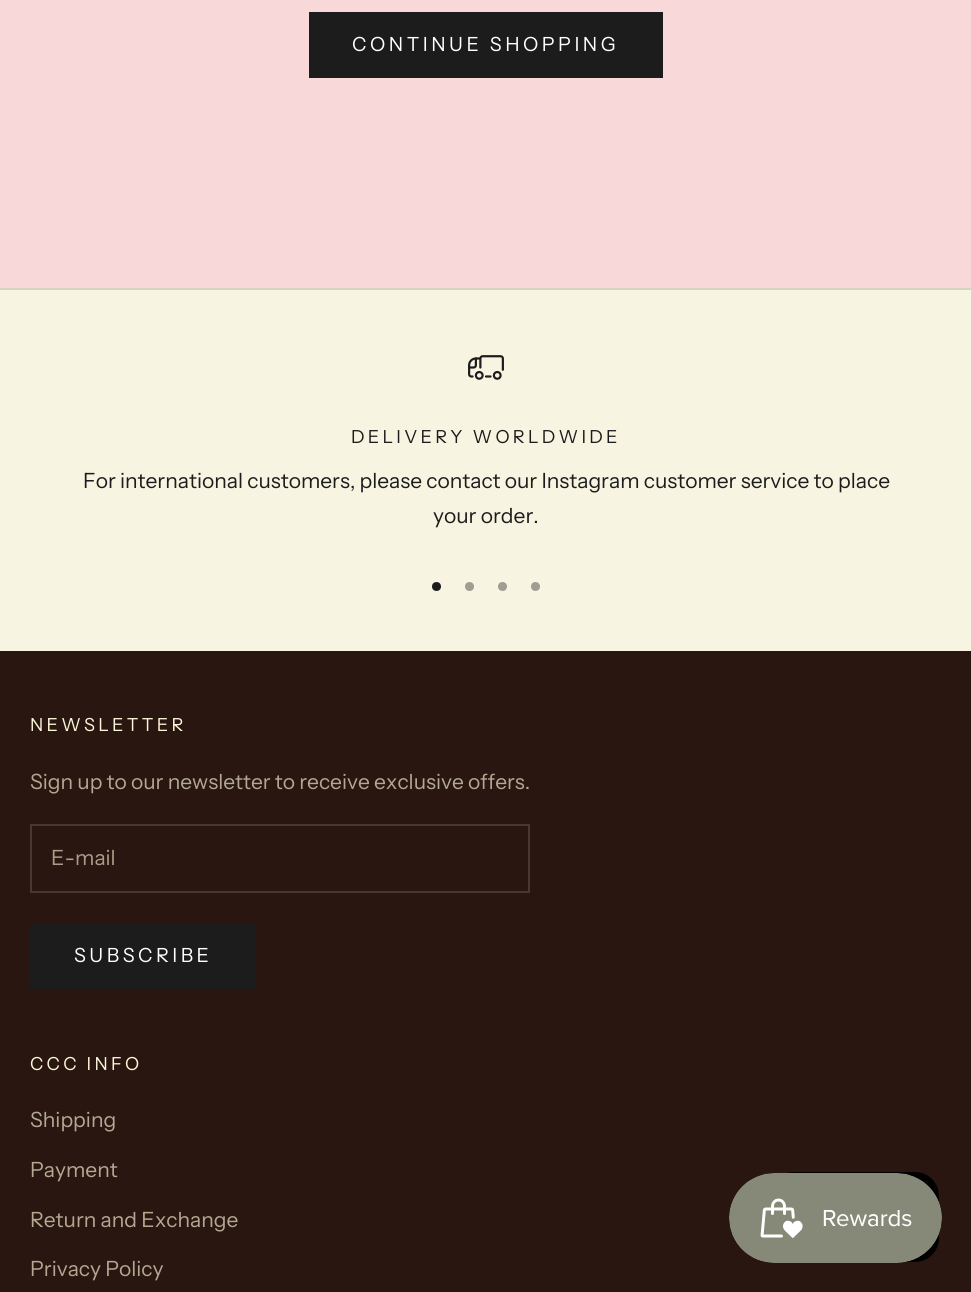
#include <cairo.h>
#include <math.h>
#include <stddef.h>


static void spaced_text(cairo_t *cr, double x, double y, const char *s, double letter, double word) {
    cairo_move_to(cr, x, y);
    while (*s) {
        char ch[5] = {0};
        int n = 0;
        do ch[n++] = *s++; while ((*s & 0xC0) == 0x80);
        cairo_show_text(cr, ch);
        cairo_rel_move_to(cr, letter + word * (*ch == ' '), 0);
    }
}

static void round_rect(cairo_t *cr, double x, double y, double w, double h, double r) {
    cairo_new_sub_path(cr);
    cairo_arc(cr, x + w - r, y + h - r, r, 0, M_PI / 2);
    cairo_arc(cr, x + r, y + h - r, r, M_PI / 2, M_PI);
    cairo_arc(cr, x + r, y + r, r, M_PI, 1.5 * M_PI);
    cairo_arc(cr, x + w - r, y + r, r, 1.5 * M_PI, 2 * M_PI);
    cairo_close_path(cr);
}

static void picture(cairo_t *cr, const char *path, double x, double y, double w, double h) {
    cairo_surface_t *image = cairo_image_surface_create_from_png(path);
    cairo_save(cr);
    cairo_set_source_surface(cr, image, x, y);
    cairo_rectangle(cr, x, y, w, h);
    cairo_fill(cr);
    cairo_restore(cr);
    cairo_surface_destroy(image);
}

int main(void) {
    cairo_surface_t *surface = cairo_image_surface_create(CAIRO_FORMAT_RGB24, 971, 1292);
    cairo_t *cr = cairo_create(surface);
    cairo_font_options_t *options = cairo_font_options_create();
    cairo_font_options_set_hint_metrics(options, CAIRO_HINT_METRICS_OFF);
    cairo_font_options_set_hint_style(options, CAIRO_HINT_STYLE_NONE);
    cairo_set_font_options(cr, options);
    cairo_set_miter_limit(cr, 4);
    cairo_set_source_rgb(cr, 0.161, 0.086, 0.063);
    cairo_paint(cr);
    cairo_set_source_rgb(cr, 0.976, 0.847, 0.851);
    cairo_rectangle(cr, 0, 0, 971, 288);
    cairo_fill(cr);
    cairo_set_source_rgb(cr, 0.11, 0.11, 0.11);
    cairo_rectangle(cr, 310, 13, 352, 64);
    cairo_fill_preserve(cr);
    cairo_stroke(cr);
    cairo_select_font_face(cr, "Instrument Sans", CAIRO_FONT_SLANT_NORMAL, CAIRO_FONT_WEIGHT_NORMAL);
    cairo_set_font_size(cr, 19.5);
    cairo_set_source_rgb(cr, 1, 1, 1);
    spaced_text(cr, 352, 51, "CONTINUE SHOPPING", 3.5, 0);
    cairo_set_source_rgb(cr, 0.965, 0.957, 0.882);
    cairo_rectangle(cr, 0, 290, 971, 361);
    cairo_fill(cr);
    cairo_set_source_rgb(cr, 0.835, 0.831, 0.765);
    cairo_rectangle(cr, 0, 288, 971, 2);
    cairo_fill(cr);
    picture(cr, "img1.png", 468, 355, 36, 25);
    cairo_set_font_size(cr, 18);
    cairo_set_source_rgb(cr, 0.11, 0.11, 0.11);
    spaced_text(cr, 351, 443, "DELIVERY WORLDWIDE", 3.25, 0);
    cairo_set_font_size(cr, 21);
    cairo_move_to(cr, 83, 488);
    cairo_show_text(cr, "For international customers, please contact our Instagram customer service to place");
    cairo_move_to(cr, 433, 523);
    cairo_show_text(cr, "your order.");
    cairo_new_path(cr);
    cairo_arc(cr, 436.5, 586.5, 4.5, 0, 2 * M_PI);
    cairo_fill(cr);
    cairo_set_source_rgb(cr, 0.624, 0.62, 0.573);
    cairo_arc(cr, 469.5, 586.5, 4.5, 0, 2 * M_PI);
    cairo_fill(cr);
    cairo_arc(cr, 502.5, 586.5, 4.5, 0, 2 * M_PI);
    cairo_fill(cr);
    cairo_arc(cr, 535.5, 586.5, 4.5, 0, 2 * M_PI);
    cairo_fill(cr);
    cairo_set_font_size(cr, 18);
    cairo_set_source_rgb(cr, 0.992, 0.973, 0.855);
    spaced_text(cr, 30, 731, "NEWSLETTER", 3.25, 0);
    cairo_set_font_size(cr, 21);
    cairo_set_source_rgb(cr, 0.702, 0.663, 0.576);
    cairo_move_to(cr, 30, 789);
    cairo_show_text(cr, "Sign up to our newsletter to receive exclusive offers.");
    cairo_rectangle(cr, 31, 825, 498, 67);
    cairo_set_source_rgb(cr, 0.286, 0.22, 0.18);
    cairo_stroke(cr);
    cairo_set_source_rgb(cr, 0.659, 0.62, 0.537);
    cairo_move_to(cr, 51, 865);
    cairo_show_text(cr, "E-mail");
    cairo_set_source_rgb(cr, 0.11, 0.11, 0.11);
    cairo_rectangle(cr, 31, 924, 223, 64);
    cairo_fill_preserve(cr);
    cairo_stroke(cr);
    cairo_set_font_size(cr, 19.5);
    cairo_set_source_rgb(cr, 1, 1, 1);
    spaced_text(cr, 74, 962, "SUBSCRIBE", 3.5, 0);
    cairo_set_font_size(cr, 18);
    cairo_set_source_rgb(cr, 0.992, 0.973, 0.855);
    spaced_text(cr, 30, 1070, "CCC INFO", 3.25, 0);
    cairo_set_font_size(cr, 21);
    cairo_set_source_rgb(cr, 0.702, 0.663, 0.576);
    cairo_move_to(cr, 30, 1127);
    cairo_show_text(cr, "Shipping");
    cairo_move_to(cr, 30, 1177);
    cairo_show_text(cr, "Payment");
    cairo_move_to(cr, 30, 1227);
    cairo_show_text(cr, "Return and Exchange");
    cairo_move_to(cr, 30, 1276);
    cairo_show_text(cr, "Privacy Policy");
    cairo_set_source_rgb(cr, 0, 0, 0);
    round_rect(cr, 770, 1172, 169, 90, 24);
    cairo_fill(cr);
    picture(cr, "img2.png", 729, 1173, 213, 90);
    cairo_surface_write_to_png(surface, "page.png");
    cairo_font_options_destroy(options);
    cairo_destroy(cr);
    cairo_surface_destroy(surface);
    return 0;
}
